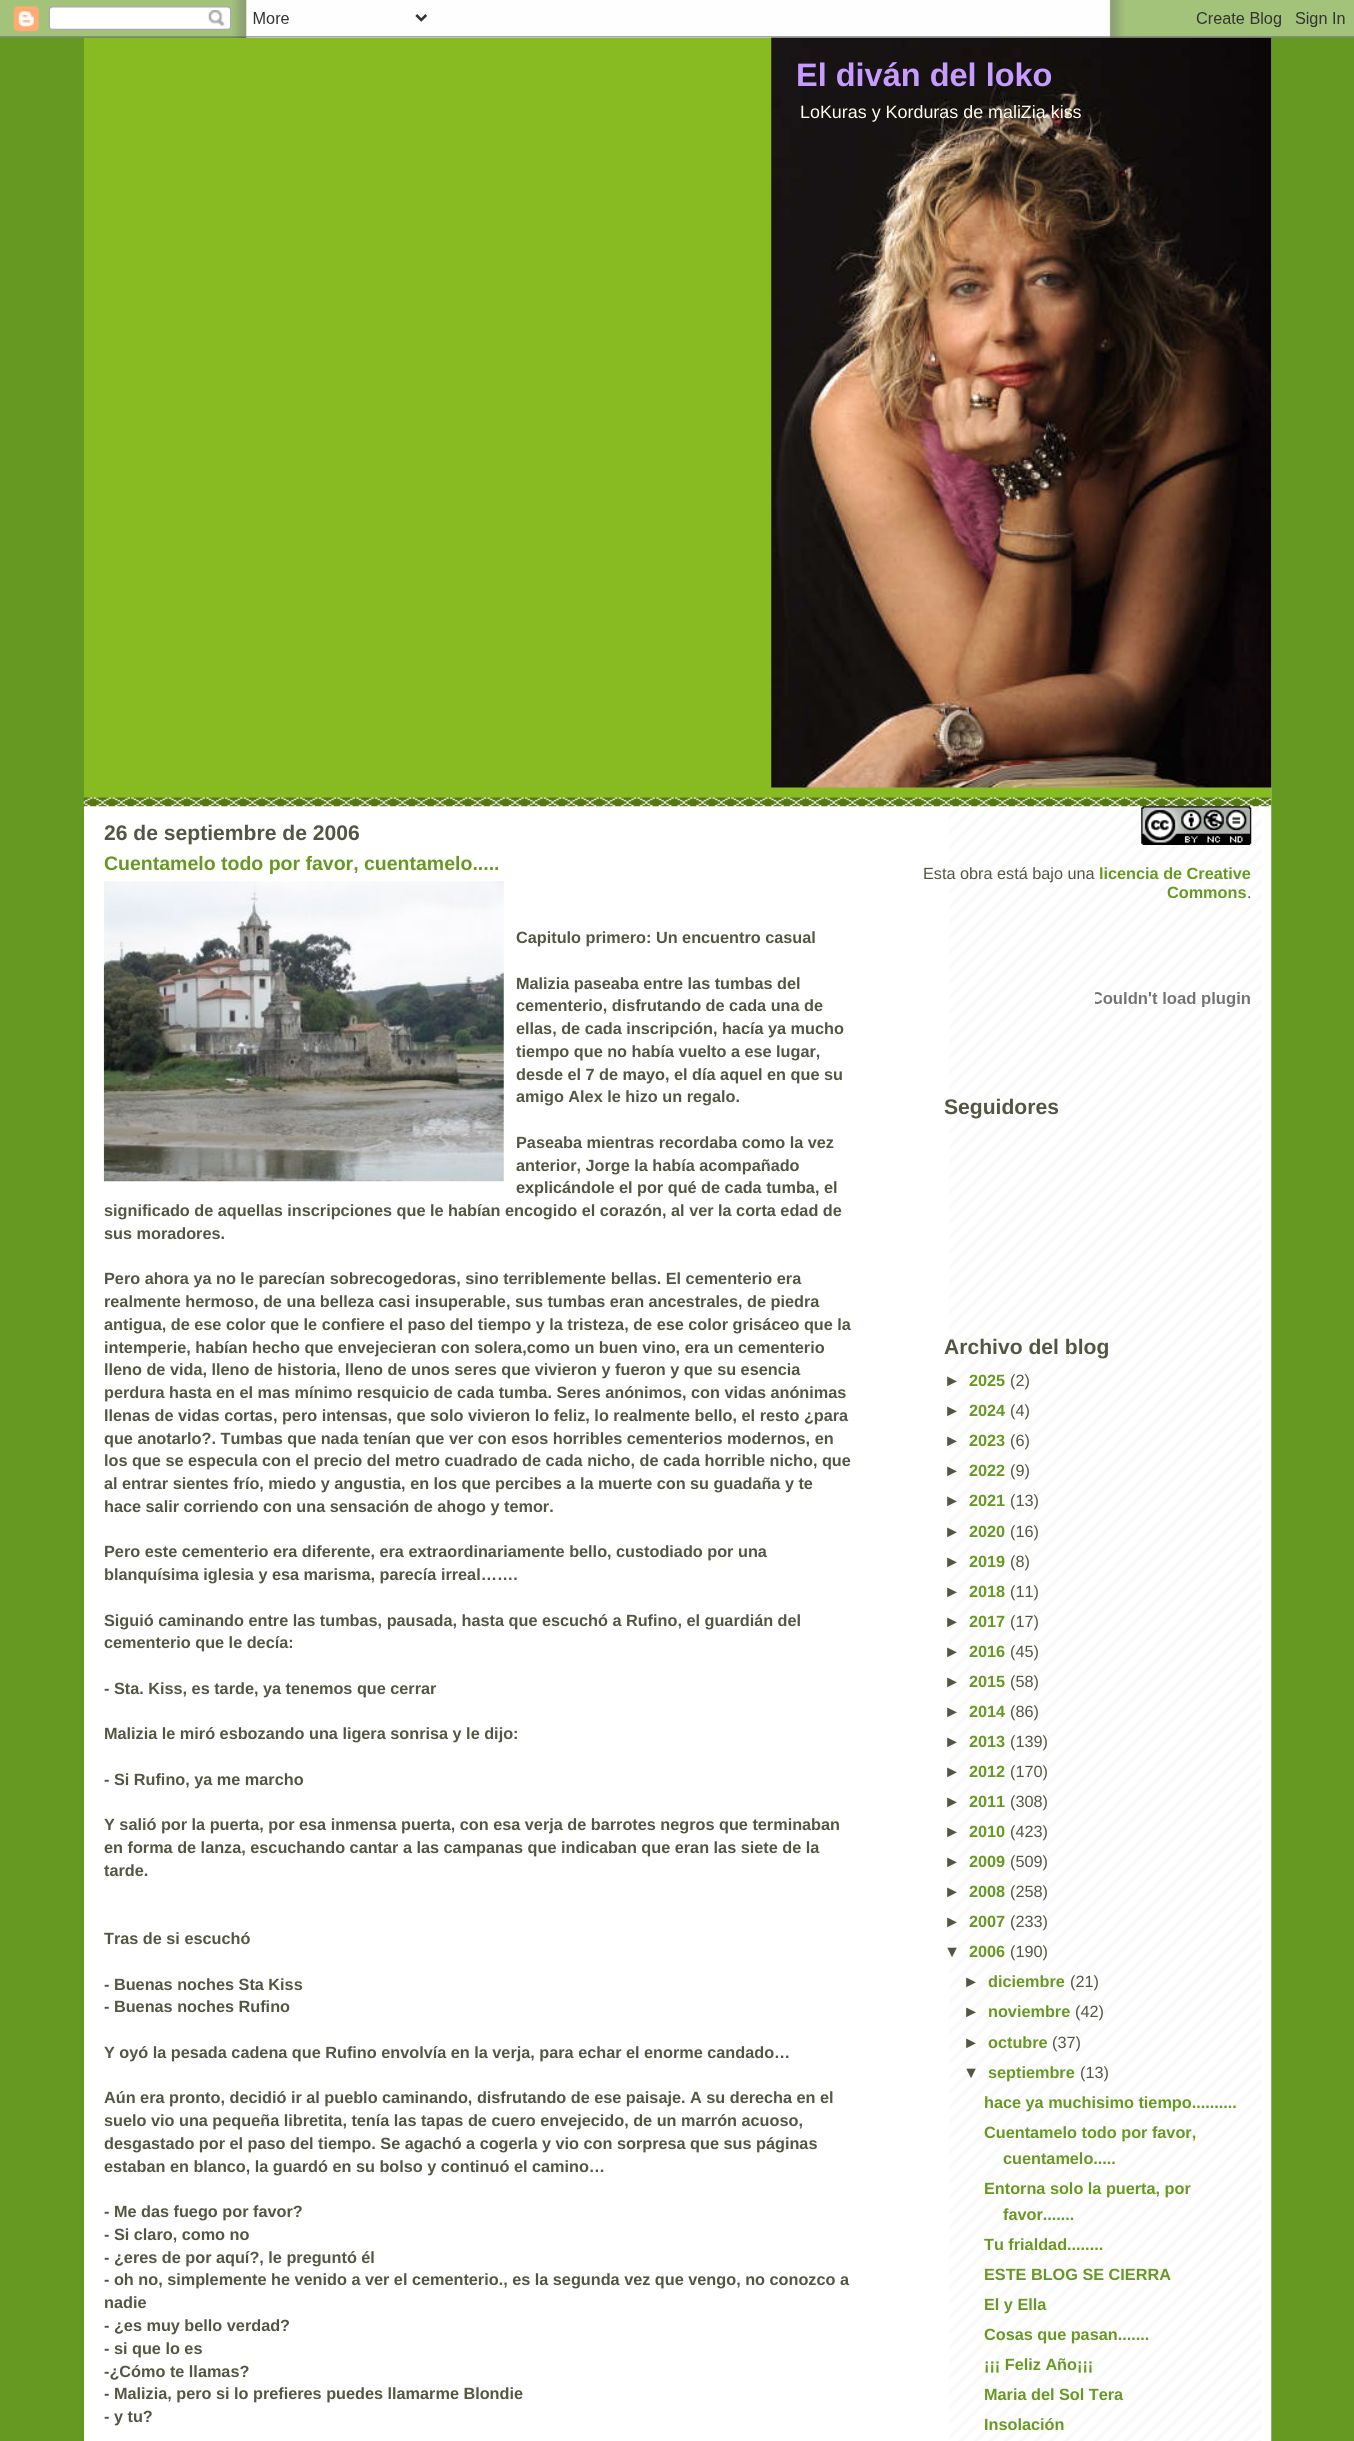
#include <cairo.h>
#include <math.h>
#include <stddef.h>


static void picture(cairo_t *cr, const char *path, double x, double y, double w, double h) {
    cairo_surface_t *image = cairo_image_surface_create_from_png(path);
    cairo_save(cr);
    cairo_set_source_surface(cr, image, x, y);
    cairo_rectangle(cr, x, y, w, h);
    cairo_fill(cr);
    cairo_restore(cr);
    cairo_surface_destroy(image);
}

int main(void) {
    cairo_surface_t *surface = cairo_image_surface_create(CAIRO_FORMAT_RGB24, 1354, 2441);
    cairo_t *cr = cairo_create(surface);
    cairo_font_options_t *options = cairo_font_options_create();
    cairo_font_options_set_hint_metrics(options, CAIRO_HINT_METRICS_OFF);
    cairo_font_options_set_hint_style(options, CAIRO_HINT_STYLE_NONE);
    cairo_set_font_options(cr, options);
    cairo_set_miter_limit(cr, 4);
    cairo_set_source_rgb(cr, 0.4, 0.6, 0.133);
    cairo_paint(cr);
    picture(cr, "img1.png", 232, 0, 893, 38);
    picture(cr, "img3.png", 949, 37, 323, 2404);
    cairo_set_source_rgb(cr, 0.533, 0.733, 0.133);
    cairo_rectangle(cr, 84, 38, 1187, 759);
    cairo_fill(cr);
    picture(cr, "img5.png", 771, 37, 501, 751);
    picture(cr, "img2.png", 0, 0, 1354, 38);
    cairo_set_source_rgb(cr, 1, 1, 1);
    cairo_rectangle(cr, 84, 806, 865, 1635);
    cairo_fill(cr);
    picture(cr, "img4.png", 83, 796, 1189, 11);
    cairo_select_font_face(cr, "Liberation Sans", CAIRO_FONT_SLANT_NORMAL, CAIRO_FONT_WEIGHT_BOLD);
    cairo_set_font_size(cr, 32.5);
    cairo_set_source_rgb(cr, 0.776, 0.612, 1);
    cairo_move_to(cr, 796, 86);
    cairo_show_text(cr, "El diván del loko");
    cairo_select_font_face(cr, "Liberation Sans", CAIRO_FONT_SLANT_NORMAL, CAIRO_FONT_WEIGHT_NORMAL);
    cairo_set_font_size(cr, 17.9);
    cairo_set_source_rgb(cr, 1, 1, 0.933);
    cairo_move_to(cr, 800, 118);
    cairo_show_text(cr, "LoKuras y Korduras de maliZia kiss");
    cairo_select_font_face(cr, "Liberation Sans", CAIRO_FONT_SLANT_NORMAL, CAIRO_FONT_WEIGHT_BOLD);
    cairo_set_font_size(cr, 21.1);
    cairo_set_source_rgb(cr, 0.333, 0.333, 0.267);
    cairo_move_to(cr, 104, 840);
    cairo_show_text(cr, "26 de septiembre de 2006");
    cairo_set_font_size(cr, 19.5);
    cairo_set_source_rgb(cr, 0.4, 0.6, 0.133);
    cairo_move_to(cr, 104, 870);
    cairo_show_text(cr, "Cuentamelo todo por favor, cuentamelo.....");
    picture(cr, "img6.png", 103, 881, 401, 301);
    cairo_set_font_size(cr, 16.25);
    cairo_set_source_rgb(cr, 0.333, 0.333, 0.267);
    cairo_move_to(cr, 516, 943);
    cairo_show_text(cr, "Capitulo primero: Un encuentro casual");
    cairo_move_to(cr, 516, 989);
    cairo_show_text(cr, "Malizia paseaba entre las tumbas del");
    cairo_move_to(cr, 516, 1011);
    cairo_show_text(cr, "cementerio, disfrutando de cada una de");
    cairo_move_to(cr, 516, 1034);
    cairo_show_text(cr, "ellas, de cada inscripción, hacía ya mucho");
    cairo_move_to(cr, 516, 1057);
    cairo_show_text(cr, "tiempo que no había vuelto a ese lugar,");
    cairo_move_to(cr, 516, 1080);
    cairo_show_text(cr, "desde el 7 de mayo, el día aquel en que su");
    cairo_move_to(cr, 516, 1102);
    cairo_show_text(cr, "amigo Alex le hizo un regalo.");
    cairo_move_to(cr, 516, 1148);
    cairo_show_text(cr, "Paseaba mientras recordaba como la vez");
    cairo_move_to(cr, 516, 1171);
    cairo_show_text(cr, "anterior, Jorge la había acompañado");
    cairo_move_to(cr, 516, 1193);
    cairo_show_text(cr, "explicándole el por qué de cada tumba, el");
    cairo_move_to(cr, 104, 1216);
    cairo_show_text(cr, "significado de aquellas inscripciones que le habían encogido el corazón, al ver la corta edad de");
    cairo_move_to(cr, 104, 1239);
    cairo_show_text(cr, "sus moradores.");
    cairo_move_to(cr, 104, 1284);
    cairo_show_text(cr, "Pero ahora ya no le parecían sobrecogedoras, sino terriblemente bellas. El cementerio era");
    cairo_move_to(cr, 104, 1307);
    cairo_show_text(cr, "realmente hermoso, de una belleza casi insuperable, sus tumbas eran ancestrales, de piedra");
    cairo_move_to(cr, 104, 1330);
    cairo_show_text(cr, "antigua, de ese color que le confiere el paso del tiempo y la tristeza, de ese color grisáceo que la");
    cairo_move_to(cr, 104, 1353);
    cairo_show_text(cr, "intemperie, habían hecho que envejecieran con solera,como un buen vino, era un cementerio");
    cairo_move_to(cr, 104, 1375);
    cairo_show_text(cr, "lleno de vida, lleno de historia, lleno de unos seres que vivieron y fueron y que su esencia");
    cairo_move_to(cr, 104, 1398);
    cairo_show_text(cr, "perdura hasta en el mas mínimo resquicio de cada tumba. Seres anónimos, con vidas anónimas");
    cairo_move_to(cr, 104, 1421);
    cairo_show_text(cr, "llenas de vidas cortas, pero intensas, que solo vivieron lo feliz, lo realmente bello, el resto ¿para");
    cairo_move_to(cr, 104, 1444);
    cairo_show_text(cr, "que anotarlo?. Tumbas que nada tenían que ver con esos horribles cementerios modernos, en");
    cairo_move_to(cr, 104, 1466);
    cairo_show_text(cr, "los que se especula con el precio del metro cuadrado de cada nicho, de cada horrible nicho, que");
    cairo_move_to(cr, 104, 1489);
    cairo_show_text(cr, "al entrar sientes frío, miedo y angustia, en los que percibes a la muerte con su guadaña y te");
    cairo_move_to(cr, 104, 1512);
    cairo_show_text(cr, "hace salir corriendo con una sensación de ahogo y temor.");
    cairo_move_to(cr, 104, 1557);
    cairo_show_text(cr, "Pero este cementerio era diferente, era extraordinariamente bello, custodiado por una");
    cairo_move_to(cr, 104, 1580);
    cairo_show_text(cr, "blanquísima iglesia y esa marisma, parecía irreal…….");
    cairo_move_to(cr, 104, 1626);
    cairo_show_text(cr, "Siguió caminando entre las tumbas, pausada, hasta que escuchó a Rufino, el guardián del");
    cairo_move_to(cr, 104, 1648);
    cairo_show_text(cr, "cementerio que le decía:");
    cairo_move_to(cr, 104, 1694);
    cairo_show_text(cr, "- Sta. Kiss, es tarde, ya tenemos que cerrar");
    cairo_move_to(cr, 104, 1739);
    cairo_show_text(cr, "Malizia le miró esbozando una ligera sonrisa y le dijo:");
    cairo_move_to(cr, 104, 1785);
    cairo_show_text(cr, "- Si Rufino, ya me marcho");
    cairo_move_to(cr, 104, 1830);
    cairo_show_text(cr, "Y salió por la puerta, por esa inmensa puerta, con esa verja de barrotes negros que terminaban");
    cairo_move_to(cr, 104, 1853);
    cairo_show_text(cr, "en forma de lanza, escuchando cantar a las campanas que indicaban que eran las siete de la");
    cairo_move_to(cr, 104, 1876);
    cairo_show_text(cr, "tarde.");
    cairo_move_to(cr, 104, 1944);
    cairo_show_text(cr, "Tras de si escuchó");
    cairo_move_to(cr, 104, 1990);
    cairo_show_text(cr, "- Buenas noches Sta Kiss");
    cairo_move_to(cr, 104, 2012);
    cairo_show_text(cr, "- Buenas noches Rufino");
    cairo_move_to(cr, 104, 2058);
    cairo_show_text(cr, "Y oyó la pesada cadena que Rufino envolvía en la verja, para echar el enorme candado…");
    cairo_move_to(cr, 104, 2103);
    cairo_show_text(cr, "Aún era pronto, decidió ir al pueblo caminando, disfrutando de ese paisaje. A su derecha en el");
    cairo_move_to(cr, 104, 2126);
    cairo_show_text(cr, "suelo vio una pequeña libretita, tenía las tapas de cuero envejecido, de un marrón acuoso,");
    cairo_move_to(cr, 104, 2149);
    cairo_show_text(cr, "desgastado por el paso del tiempo. Se agachó a cogerla y vio con sorpresa que sus páginas");
    cairo_move_to(cr, 104, 2172);
    cairo_show_text(cr, "estaban en blanco, la guardó en su bolso y continuó el camino…");
    cairo_move_to(cr, 104, 2217);
    cairo_show_text(cr, "- Me das fuego por favor?");
    cairo_move_to(cr, 104, 2240);
    cairo_show_text(cr, "- Si claro, como no");
    cairo_move_to(cr, 104, 2263);
    cairo_show_text(cr, "- ¿eres de por aquí?, le preguntó él");
    cairo_move_to(cr, 104, 2285);
    cairo_show_text(cr, "- oh no, simplemente he venido a ver el cementerio., es la segunda vez que vengo, no conozco a");
    cairo_move_to(cr, 104, 2308);
    cairo_show_text(cr, "nadie");
    cairo_move_to(cr, 104, 2331);
    cairo_show_text(cr, "- ¿es muy bello verdad?");
    cairo_move_to(cr, 104, 2354);
    cairo_show_text(cr, "- si que lo es");
    cairo_move_to(cr, 104, 2377);
    cairo_show_text(cr, "-¿Cómo te llamas?");
    cairo_move_to(cr, 104, 2399);
    cairo_show_text(cr, "- Malizia, pero si lo prefieres puedes llamarme Blondie");
    cairo_move_to(cr, 104, 2422);
    cairo_show_text(cr, "- y tu?");
    picture(cr, "img7.png", 1141, 806, 111, 39);
    cairo_select_font_face(cr, "Liberation Sans", CAIRO_FONT_SLANT_NORMAL, CAIRO_FONT_WEIGHT_NORMAL);
    cairo_move_to(cr, 923, 879);
    cairo_show_text(cr, "Esta obra está bajo una");
    cairo_select_font_face(cr, "Liberation Sans", CAIRO_FONT_SLANT_NORMAL, CAIRO_FONT_WEIGHT_BOLD);
    cairo_set_source_rgb(cr, 0.4, 0.6, 0.133);
    cairo_move_to(cr, 1099, 879);
    cairo_show_text(cr, "licencia de Creative");
    cairo_move_to(cr, 1167, 898);
    cairo_show_text(cr, "Commons");
    cairo_select_font_face(cr, "Liberation Sans", CAIRO_FONT_SLANT_NORMAL, CAIRO_FONT_WEIGHT_NORMAL);
    cairo_set_source_rgb(cr, 0.333, 0.333, 0.267);
    cairo_move_to(cr, 1247, 898);
    cairo_show_text(cr, ".");
    picture(cr, "img8.png", 1095, 992, 155, 15);
    cairo_select_font_face(cr, "Liberation Sans", CAIRO_FONT_SLANT_NORMAL, CAIRO_FONT_WEIGHT_BOLD);
    cairo_set_font_size(cr, 21.1);
    cairo_move_to(cr, 944, 1114);
    cairo_show_text(cr, "Seguidores");
    cairo_move_to(cr, 944, 1354);
    cairo_show_text(cr, "Archivo del blog");
    cairo_set_font_size(cr, 16.25);
    cairo_move_to(cr, 944, 1386);
    cairo_show_text(cr, "►");
    cairo_set_source_rgb(cr, 0.4, 0.6, 0.133);
    cairo_move_to(cr, 969, 1386);
    cairo_show_text(cr, "2025");
    cairo_select_font_face(cr, "Liberation Sans", CAIRO_FONT_SLANT_NORMAL, CAIRO_FONT_WEIGHT_NORMAL);
    cairo_set_source_rgb(cr, 0.333, 0.333, 0.267);
    cairo_move_to(cr, 1010, 1386);
    cairo_show_text(cr, "(2)");
    cairo_select_font_face(cr, "Liberation Sans", CAIRO_FONT_SLANT_NORMAL, CAIRO_FONT_WEIGHT_BOLD);
    cairo_move_to(cr, 944, 1416);
    cairo_show_text(cr, "►");
    cairo_set_source_rgb(cr, 0.4, 0.6, 0.133);
    cairo_move_to(cr, 969, 1416);
    cairo_show_text(cr, "2024");
    cairo_select_font_face(cr, "Liberation Sans", CAIRO_FONT_SLANT_NORMAL, CAIRO_FONT_WEIGHT_NORMAL);
    cairo_set_source_rgb(cr, 0.333, 0.333, 0.267);
    cairo_move_to(cr, 1010, 1416);
    cairo_show_text(cr, "(4)");
    cairo_select_font_face(cr, "Liberation Sans", CAIRO_FONT_SLANT_NORMAL, CAIRO_FONT_WEIGHT_BOLD);
    cairo_move_to(cr, 944, 1446);
    cairo_show_text(cr, "►");
    cairo_set_source_rgb(cr, 0.4, 0.6, 0.133);
    cairo_move_to(cr, 969, 1446);
    cairo_show_text(cr, "2023");
    cairo_select_font_face(cr, "Liberation Sans", CAIRO_FONT_SLANT_NORMAL, CAIRO_FONT_WEIGHT_NORMAL);
    cairo_set_source_rgb(cr, 0.333, 0.333, 0.267);
    cairo_move_to(cr, 1010, 1446);
    cairo_show_text(cr, "(6)");
    cairo_select_font_face(cr, "Liberation Sans", CAIRO_FONT_SLANT_NORMAL, CAIRO_FONT_WEIGHT_BOLD);
    cairo_move_to(cr, 944, 1476);
    cairo_show_text(cr, "►");
    cairo_set_source_rgb(cr, 0.4, 0.6, 0.133);
    cairo_move_to(cr, 969, 1476);
    cairo_show_text(cr, "2022");
    cairo_select_font_face(cr, "Liberation Sans", CAIRO_FONT_SLANT_NORMAL, CAIRO_FONT_WEIGHT_NORMAL);
    cairo_set_source_rgb(cr, 0.333, 0.333, 0.267);
    cairo_move_to(cr, 1010, 1476);
    cairo_show_text(cr, "(9)");
    cairo_select_font_face(cr, "Liberation Sans", CAIRO_FONT_SLANT_NORMAL, CAIRO_FONT_WEIGHT_BOLD);
    cairo_move_to(cr, 944, 1506);
    cairo_show_text(cr, "►");
    cairo_set_source_rgb(cr, 0.4, 0.6, 0.133);
    cairo_move_to(cr, 969, 1506);
    cairo_show_text(cr, "2021");
    cairo_select_font_face(cr, "Liberation Sans", CAIRO_FONT_SLANT_NORMAL, CAIRO_FONT_WEIGHT_NORMAL);
    cairo_set_source_rgb(cr, 0.333, 0.333, 0.267);
    cairo_move_to(cr, 1010, 1506);
    cairo_show_text(cr, "(13)");
    cairo_select_font_face(cr, "Liberation Sans", CAIRO_FONT_SLANT_NORMAL, CAIRO_FONT_WEIGHT_BOLD);
    cairo_move_to(cr, 944, 1537);
    cairo_show_text(cr, "►");
    cairo_set_source_rgb(cr, 0.4, 0.6, 0.133);
    cairo_move_to(cr, 969, 1537);
    cairo_show_text(cr, "2020");
    cairo_select_font_face(cr, "Liberation Sans", CAIRO_FONT_SLANT_NORMAL, CAIRO_FONT_WEIGHT_NORMAL);
    cairo_set_source_rgb(cr, 0.333, 0.333, 0.267);
    cairo_move_to(cr, 1010, 1537);
    cairo_show_text(cr, "(16)");
    cairo_select_font_face(cr, "Liberation Sans", CAIRO_FONT_SLANT_NORMAL, CAIRO_FONT_WEIGHT_BOLD);
    cairo_move_to(cr, 944, 1567);
    cairo_show_text(cr, "►");
    cairo_set_source_rgb(cr, 0.4, 0.6, 0.133);
    cairo_move_to(cr, 969, 1567);
    cairo_show_text(cr, "2019");
    cairo_select_font_face(cr, "Liberation Sans", CAIRO_FONT_SLANT_NORMAL, CAIRO_FONT_WEIGHT_NORMAL);
    cairo_set_source_rgb(cr, 0.333, 0.333, 0.267);
    cairo_move_to(cr, 1010, 1567);
    cairo_show_text(cr, "(8)");
    cairo_select_font_face(cr, "Liberation Sans", CAIRO_FONT_SLANT_NORMAL, CAIRO_FONT_WEIGHT_BOLD);
    cairo_move_to(cr, 944, 1597);
    cairo_show_text(cr, "►");
    cairo_set_source_rgb(cr, 0.4, 0.6, 0.133);
    cairo_move_to(cr, 969, 1597);
    cairo_show_text(cr, "2018");
    cairo_select_font_face(cr, "Liberation Sans", CAIRO_FONT_SLANT_NORMAL, CAIRO_FONT_WEIGHT_NORMAL);
    cairo_set_source_rgb(cr, 0.333, 0.333, 0.267);
    cairo_move_to(cr, 1010, 1597);
    cairo_show_text(cr, "(11)");
    cairo_select_font_face(cr, "Liberation Sans", CAIRO_FONT_SLANT_NORMAL, CAIRO_FONT_WEIGHT_BOLD);
    cairo_move_to(cr, 944, 1627);
    cairo_show_text(cr, "►");
    cairo_set_source_rgb(cr, 0.4, 0.6, 0.133);
    cairo_move_to(cr, 969, 1627);
    cairo_show_text(cr, "2017");
    cairo_select_font_face(cr, "Liberation Sans", CAIRO_FONT_SLANT_NORMAL, CAIRO_FONT_WEIGHT_NORMAL);
    cairo_set_source_rgb(cr, 0.333, 0.333, 0.267);
    cairo_move_to(cr, 1010, 1627);
    cairo_show_text(cr, "(17)");
    cairo_select_font_face(cr, "Liberation Sans", CAIRO_FONT_SLANT_NORMAL, CAIRO_FONT_WEIGHT_BOLD);
    cairo_move_to(cr, 944, 1657);
    cairo_show_text(cr, "►");
    cairo_set_source_rgb(cr, 0.4, 0.6, 0.133);
    cairo_move_to(cr, 969, 1657);
    cairo_show_text(cr, "2016");
    cairo_select_font_face(cr, "Liberation Sans", CAIRO_FONT_SLANT_NORMAL, CAIRO_FONT_WEIGHT_NORMAL);
    cairo_set_source_rgb(cr, 0.333, 0.333, 0.267);
    cairo_move_to(cr, 1010, 1657);
    cairo_show_text(cr, "(45)");
    cairo_select_font_face(cr, "Liberation Sans", CAIRO_FONT_SLANT_NORMAL, CAIRO_FONT_WEIGHT_BOLD);
    cairo_move_to(cr, 944, 1687);
    cairo_show_text(cr, "►");
    cairo_set_source_rgb(cr, 0.4, 0.6, 0.133);
    cairo_move_to(cr, 969, 1687);
    cairo_show_text(cr, "2015");
    cairo_select_font_face(cr, "Liberation Sans", CAIRO_FONT_SLANT_NORMAL, CAIRO_FONT_WEIGHT_NORMAL);
    cairo_set_source_rgb(cr, 0.333, 0.333, 0.267);
    cairo_move_to(cr, 1010, 1687);
    cairo_show_text(cr, "(58)");
    cairo_select_font_face(cr, "Liberation Sans", CAIRO_FONT_SLANT_NORMAL, CAIRO_FONT_WEIGHT_BOLD);
    cairo_move_to(cr, 944, 1717);
    cairo_show_text(cr, "►");
    cairo_set_source_rgb(cr, 0.4, 0.6, 0.133);
    cairo_move_to(cr, 969, 1717);
    cairo_show_text(cr, "2014");
    cairo_select_font_face(cr, "Liberation Sans", CAIRO_FONT_SLANT_NORMAL, CAIRO_FONT_WEIGHT_NORMAL);
    cairo_set_source_rgb(cr, 0.333, 0.333, 0.267);
    cairo_move_to(cr, 1010, 1717);
    cairo_show_text(cr, "(86)");
    cairo_select_font_face(cr, "Liberation Sans", CAIRO_FONT_SLANT_NORMAL, CAIRO_FONT_WEIGHT_BOLD);
    cairo_move_to(cr, 944, 1747);
    cairo_show_text(cr, "►");
    cairo_set_source_rgb(cr, 0.4, 0.6, 0.133);
    cairo_move_to(cr, 969, 1747);
    cairo_show_text(cr, "2013");
    cairo_select_font_face(cr, "Liberation Sans", CAIRO_FONT_SLANT_NORMAL, CAIRO_FONT_WEIGHT_NORMAL);
    cairo_set_source_rgb(cr, 0.333, 0.333, 0.267);
    cairo_move_to(cr, 1010, 1747);
    cairo_show_text(cr, "(139)");
    cairo_select_font_face(cr, "Liberation Sans", CAIRO_FONT_SLANT_NORMAL, CAIRO_FONT_WEIGHT_BOLD);
    cairo_move_to(cr, 944, 1777);
    cairo_show_text(cr, "►");
    cairo_set_source_rgb(cr, 0.4, 0.6, 0.133);
    cairo_move_to(cr, 969, 1777);
    cairo_show_text(cr, "2012");
    cairo_select_font_face(cr, "Liberation Sans", CAIRO_FONT_SLANT_NORMAL, CAIRO_FONT_WEIGHT_NORMAL);
    cairo_set_source_rgb(cr, 0.333, 0.333, 0.267);
    cairo_move_to(cr, 1010, 1777);
    cairo_show_text(cr, "(170)");
    cairo_select_font_face(cr, "Liberation Sans", CAIRO_FONT_SLANT_NORMAL, CAIRO_FONT_WEIGHT_BOLD);
    cairo_move_to(cr, 944, 1807);
    cairo_show_text(cr, "►");
    cairo_set_source_rgb(cr, 0.4, 0.6, 0.133);
    cairo_move_to(cr, 969, 1807);
    cairo_show_text(cr, "2011");
    cairo_select_font_face(cr, "Liberation Sans", CAIRO_FONT_SLANT_NORMAL, CAIRO_FONT_WEIGHT_NORMAL);
    cairo_set_source_rgb(cr, 0.333, 0.333, 0.267);
    cairo_move_to(cr, 1010, 1807);
    cairo_show_text(cr, "(308)");
    cairo_select_font_face(cr, "Liberation Sans", CAIRO_FONT_SLANT_NORMAL, CAIRO_FONT_WEIGHT_BOLD);
    cairo_move_to(cr, 944, 1837);
    cairo_show_text(cr, "►");
    cairo_set_source_rgb(cr, 0.4, 0.6, 0.133);
    cairo_move_to(cr, 969, 1837);
    cairo_show_text(cr, "2010");
    cairo_select_font_face(cr, "Liberation Sans", CAIRO_FONT_SLANT_NORMAL, CAIRO_FONT_WEIGHT_NORMAL);
    cairo_set_source_rgb(cr, 0.333, 0.333, 0.267);
    cairo_move_to(cr, 1010, 1837);
    cairo_show_text(cr, "(423)");
    cairo_select_font_face(cr, "Liberation Sans", CAIRO_FONT_SLANT_NORMAL, CAIRO_FONT_WEIGHT_BOLD);
    cairo_move_to(cr, 944, 1867);
    cairo_show_text(cr, "►");
    cairo_set_source_rgb(cr, 0.4, 0.6, 0.133);
    cairo_move_to(cr, 969, 1867);
    cairo_show_text(cr, "2009");
    cairo_select_font_face(cr, "Liberation Sans", CAIRO_FONT_SLANT_NORMAL, CAIRO_FONT_WEIGHT_NORMAL);
    cairo_set_source_rgb(cr, 0.333, 0.333, 0.267);
    cairo_move_to(cr, 1010, 1867);
    cairo_show_text(cr, "(509)");
    cairo_select_font_face(cr, "Liberation Sans", CAIRO_FONT_SLANT_NORMAL, CAIRO_FONT_WEIGHT_BOLD);
    cairo_move_to(cr, 944, 1897);
    cairo_show_text(cr, "►");
    cairo_set_source_rgb(cr, 0.4, 0.6, 0.133);
    cairo_move_to(cr, 969, 1897);
    cairo_show_text(cr, "2008");
    cairo_select_font_face(cr, "Liberation Sans", CAIRO_FONT_SLANT_NORMAL, CAIRO_FONT_WEIGHT_NORMAL);
    cairo_set_source_rgb(cr, 0.333, 0.333, 0.267);
    cairo_move_to(cr, 1010, 1897);
    cairo_show_text(cr, "(258)");
    cairo_select_font_face(cr, "Liberation Sans", CAIRO_FONT_SLANT_NORMAL, CAIRO_FONT_WEIGHT_BOLD);
    cairo_move_to(cr, 944, 1927);
    cairo_show_text(cr, "►");
    cairo_set_source_rgb(cr, 0.4, 0.6, 0.133);
    cairo_move_to(cr, 969, 1927);
    cairo_show_text(cr, "2007");
    cairo_select_font_face(cr, "Liberation Sans", CAIRO_FONT_SLANT_NORMAL, CAIRO_FONT_WEIGHT_NORMAL);
    cairo_set_source_rgb(cr, 0.333, 0.333, 0.267);
    cairo_move_to(cr, 1010, 1927);
    cairo_show_text(cr, "(233)");
    cairo_select_font_face(cr, "Liberation Sans", CAIRO_FONT_SLANT_NORMAL, CAIRO_FONT_WEIGHT_BOLD);
    cairo_move_to(cr, 944, 1957);
    cairo_show_text(cr, "▼");
    cairo_set_source_rgb(cr, 0.4, 0.6, 0.133);
    cairo_move_to(cr, 969, 1957);
    cairo_show_text(cr, "2006");
    cairo_select_font_face(cr, "Liberation Sans", CAIRO_FONT_SLANT_NORMAL, CAIRO_FONT_WEIGHT_NORMAL);
    cairo_set_source_rgb(cr, 0.333, 0.333, 0.267);
    cairo_move_to(cr, 1010, 1957);
    cairo_show_text(cr, "(190)");
    cairo_select_font_face(cr, "Liberation Sans", CAIRO_FONT_SLANT_NORMAL, CAIRO_FONT_WEIGHT_BOLD);
    cairo_move_to(cr, 963, 1987);
    cairo_show_text(cr, "►");
    cairo_set_source_rgb(cr, 0.4, 0.6, 0.133);
    cairo_move_to(cr, 988, 1987);
    cairo_show_text(cr, "diciembre");
    cairo_select_font_face(cr, "Liberation Sans", CAIRO_FONT_SLANT_NORMAL, CAIRO_FONT_WEIGHT_NORMAL);
    cairo_set_source_rgb(cr, 0.333, 0.333, 0.267);
    cairo_move_to(cr, 1070, 1987);
    cairo_show_text(cr, "(21)");
    cairo_select_font_face(cr, "Liberation Sans", CAIRO_FONT_SLANT_NORMAL, CAIRO_FONT_WEIGHT_BOLD);
    cairo_move_to(cr, 963, 2017);
    cairo_show_text(cr, "►");
    cairo_set_source_rgb(cr, 0.4, 0.6, 0.133);
    cairo_move_to(cr, 988, 2017);
    cairo_show_text(cr, "noviembre");
    cairo_select_font_face(cr, "Liberation Sans", CAIRO_FONT_SLANT_NORMAL, CAIRO_FONT_WEIGHT_NORMAL);
    cairo_set_source_rgb(cr, 0.333, 0.333, 0.267);
    cairo_move_to(cr, 1075, 2017);
    cairo_show_text(cr, "(42)");
    cairo_select_font_face(cr, "Liberation Sans", CAIRO_FONT_SLANT_NORMAL, CAIRO_FONT_WEIGHT_BOLD);
    cairo_move_to(cr, 963, 2048);
    cairo_show_text(cr, "►");
    cairo_set_source_rgb(cr, 0.4, 0.6, 0.133);
    cairo_move_to(cr, 988, 2048);
    cairo_show_text(cr, "octubre");
    cairo_select_font_face(cr, "Liberation Sans", CAIRO_FONT_SLANT_NORMAL, CAIRO_FONT_WEIGHT_NORMAL);
    cairo_set_source_rgb(cr, 0.333, 0.333, 0.267);
    cairo_move_to(cr, 1052, 2048);
    cairo_show_text(cr, "(37)");
    cairo_select_font_face(cr, "Liberation Sans", CAIRO_FONT_SLANT_NORMAL, CAIRO_FONT_WEIGHT_BOLD);
    cairo_move_to(cr, 963, 2078);
    cairo_show_text(cr, "▼");
    cairo_set_source_rgb(cr, 0.4, 0.6, 0.133);
    cairo_move_to(cr, 988, 2078);
    cairo_show_text(cr, "septiembre");
    cairo_select_font_face(cr, "Liberation Sans", CAIRO_FONT_SLANT_NORMAL, CAIRO_FONT_WEIGHT_NORMAL);
    cairo_set_source_rgb(cr, 0.333, 0.333, 0.267);
    cairo_move_to(cr, 1080, 2078);
    cairo_show_text(cr, "(13)");
    cairo_select_font_face(cr, "Liberation Sans", CAIRO_FONT_SLANT_NORMAL, CAIRO_FONT_WEIGHT_BOLD);
    cairo_set_source_rgb(cr, 0.4, 0.6, 0.133);
    cairo_move_to(cr, 984, 2108);
    cairo_show_text(cr, "hace ya muchisimo tiempo..........");
    cairo_move_to(cr, 984, 2138);
    cairo_show_text(cr, "Cuentamelo todo por favor,");
    cairo_move_to(cr, 1003, 2164);
    cairo_show_text(cr, "cuentamelo.....");
    cairo_move_to(cr, 984, 2194);
    cairo_show_text(cr, "Entorna solo la puerta, por");
    cairo_move_to(cr, 1003, 2220);
    cairo_show_text(cr, "favor.......");
    cairo_move_to(cr, 984, 2250);
    cairo_show_text(cr, "Tu frialdad........");
    cairo_move_to(cr, 984, 2280);
    cairo_show_text(cr, "ESTE BLOG SE CIERRA");
    cairo_move_to(cr, 984, 2310);
    cairo_show_text(cr, "El y Ella");
    cairo_move_to(cr, 984, 2340);
    cairo_show_text(cr, "Cosas que pasan.......");
    cairo_move_to(cr, 984, 2370);
    cairo_show_text(cr, "¡¡¡ Feliz Año¡¡¡");
    cairo_move_to(cr, 984, 2400);
    cairo_show_text(cr, "Maria del Sol Tera");
    cairo_move_to(cr, 984, 2430);
    cairo_show_text(cr, "Insolación");
    cairo_surface_write_to_png(surface, "page.png");
    cairo_font_options_destroy(options);
    cairo_destroy(cr);
    cairo_surface_destroy(surface);
    return 0;
}
